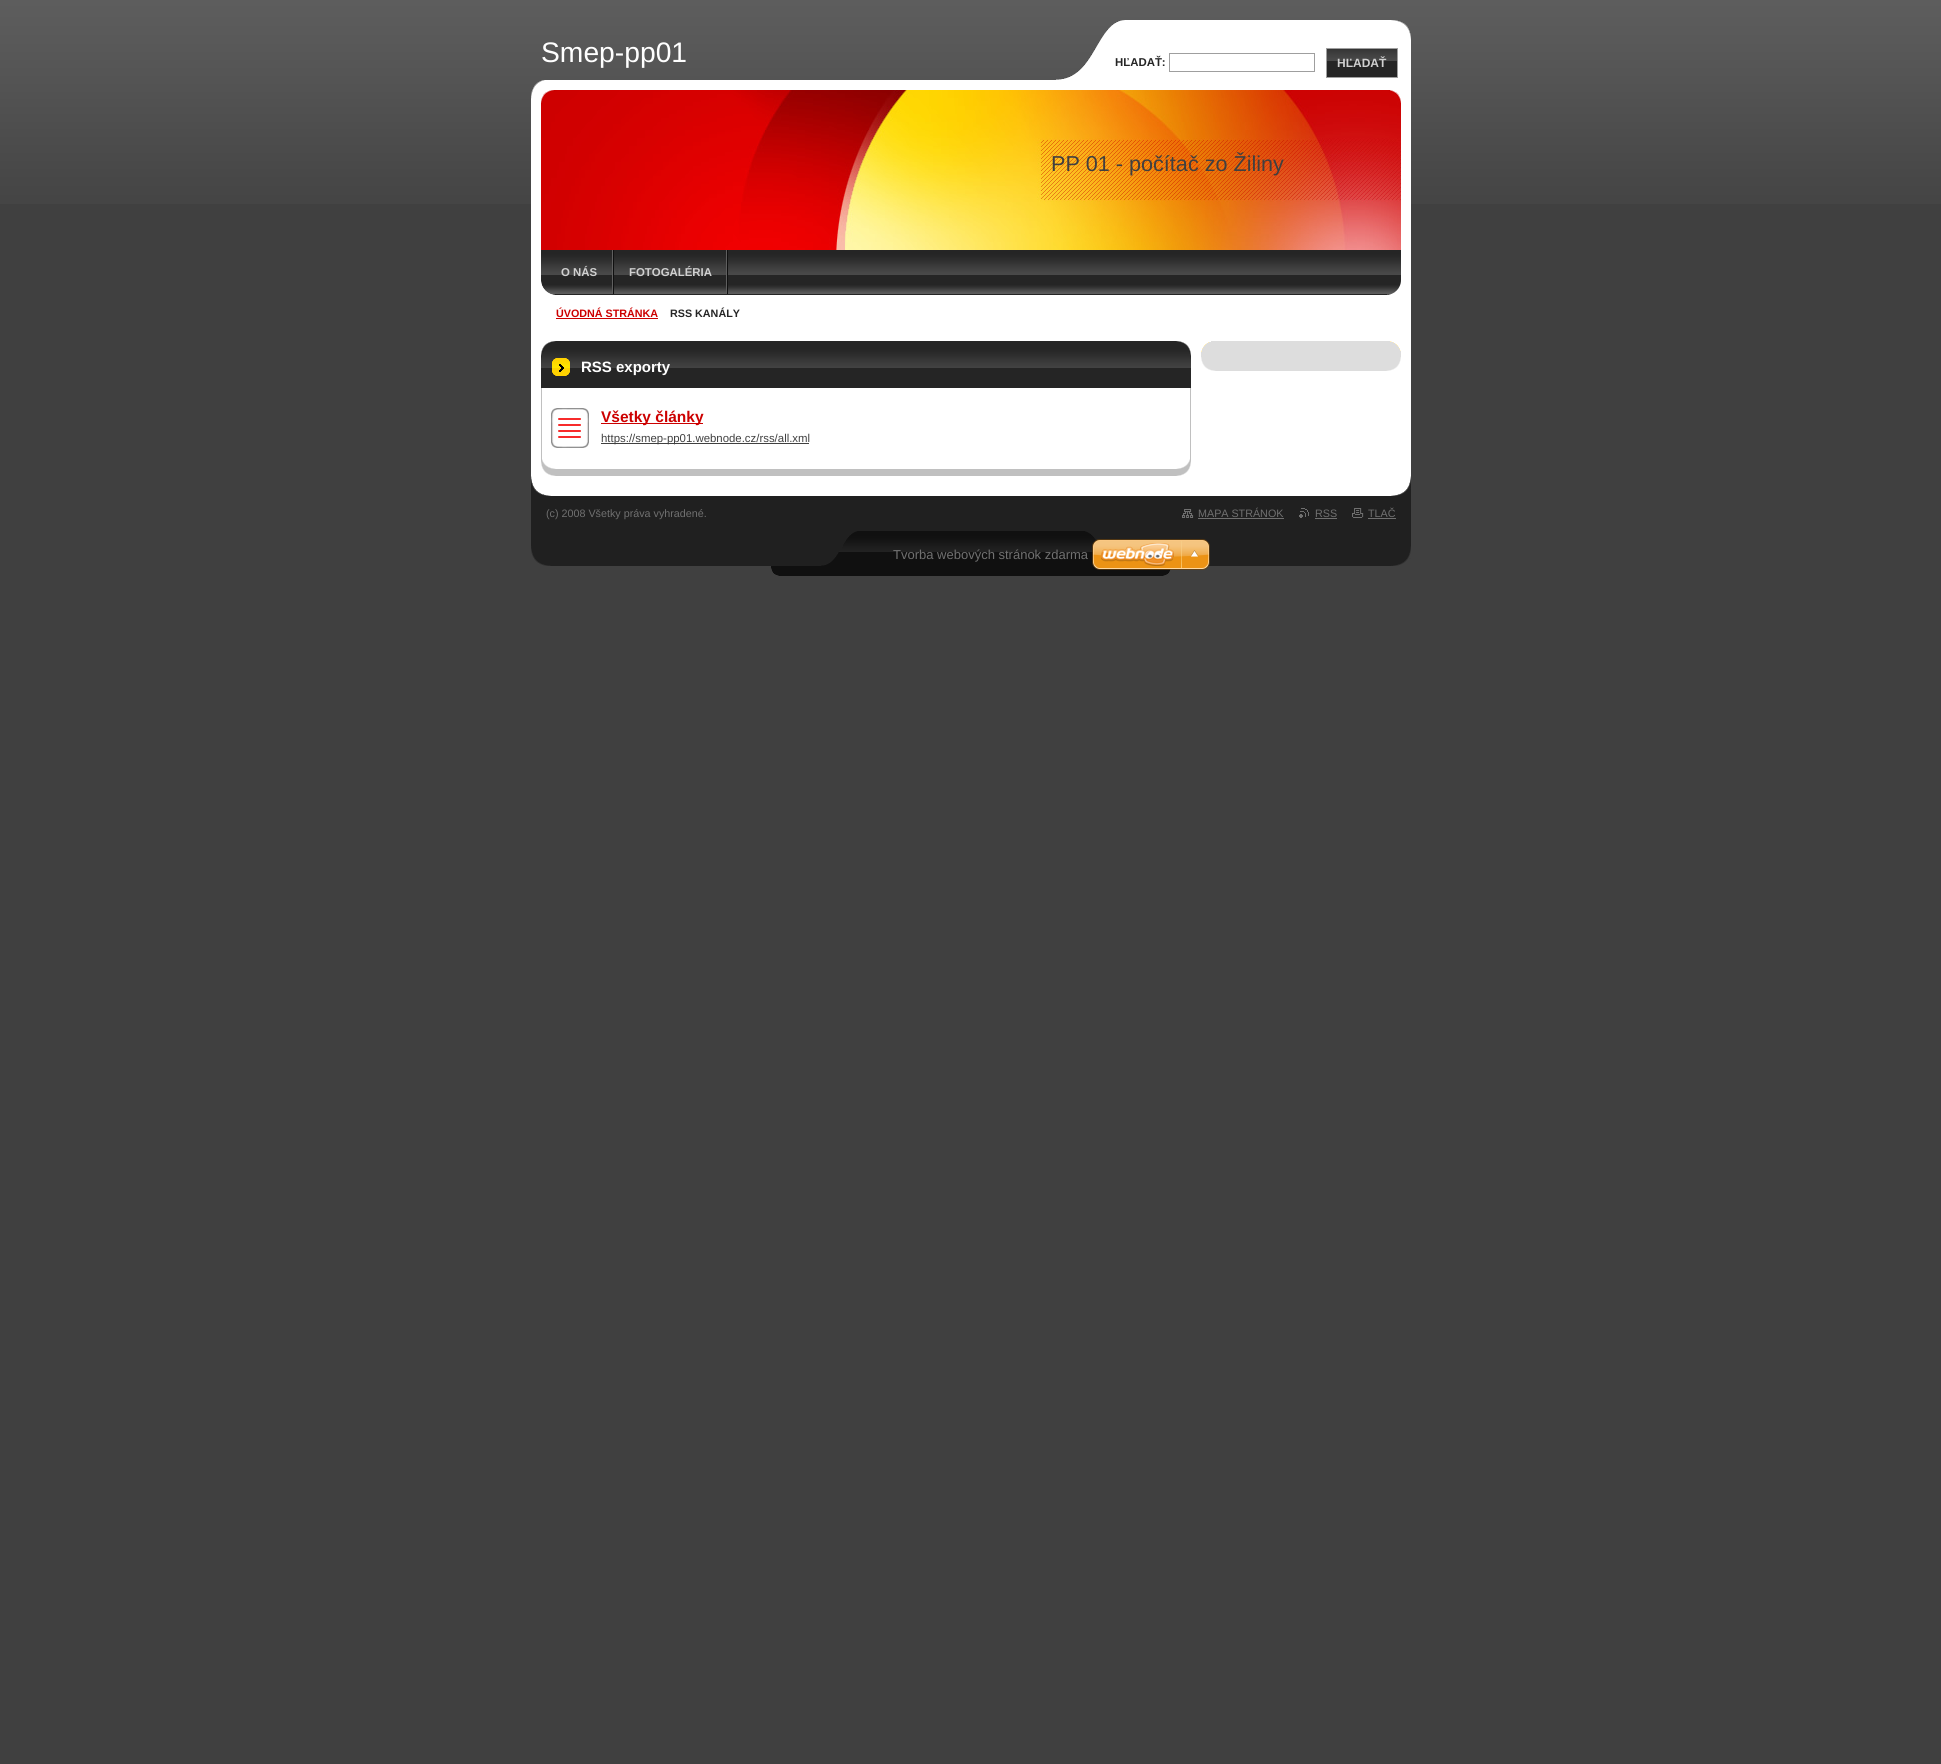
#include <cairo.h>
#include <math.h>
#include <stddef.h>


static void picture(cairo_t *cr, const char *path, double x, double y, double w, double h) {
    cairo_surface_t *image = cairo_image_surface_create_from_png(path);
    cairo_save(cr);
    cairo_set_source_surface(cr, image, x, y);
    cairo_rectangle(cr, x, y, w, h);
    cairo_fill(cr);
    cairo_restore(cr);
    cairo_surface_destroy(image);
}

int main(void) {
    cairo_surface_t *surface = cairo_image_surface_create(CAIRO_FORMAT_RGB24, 1941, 1764);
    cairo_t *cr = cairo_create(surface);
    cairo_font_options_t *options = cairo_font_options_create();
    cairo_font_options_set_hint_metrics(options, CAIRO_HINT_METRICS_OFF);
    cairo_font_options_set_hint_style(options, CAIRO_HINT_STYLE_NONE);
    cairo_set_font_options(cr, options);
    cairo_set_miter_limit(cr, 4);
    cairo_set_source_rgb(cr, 0.251, 0.251, 0.251);
    cairo_paint(cr);
    picture(cr, "img1.png", 0, 0, 1941, 204);
    cairo_select_font_face(cr, "Liberation Sans", CAIRO_FONT_SLANT_NORMAL, CAIRO_FONT_WEIGHT_NORMAL);
    cairo_set_font_size(cr, 28.25);
    cairo_set_source_rgb(cr, 1, 1, 1);
    cairo_move_to(cr, 541, 62);
    cairo_show_text(cr, "Smep-pp01");
    picture(cr, "img2.png", 531, 80, 880, 170);
    picture(cr, "img4.png", 541, 90, 860, 160);
    picture(cr, "img3.png", 531, 80, 870, 23);
    cairo_set_font_size(cr, 21.6);
    cairo_set_source_rgb(cr, 0.251, 0.251, 0.251);
    cairo_move_to(cr, 1051, 171);
    cairo_show_text(cr, "PP 01 - počítač zo Žiliny");
    picture(cr, "img5.png", 531, 250, 880, 45);
    cairo_set_source_rgb(cr, 0.063, 0.063, 0.063);
    cairo_rectangle(cr, 613, 250, 1, 44);
    cairo_fill(cr);
    cairo_set_source_rgb(cr, 0.373, 0.373, 0.373);
    cairo_rectangle(cr, 612, 250, 1, 44);
    cairo_fill(cr);
    cairo_select_font_face(cr, "Liberation Sans", CAIRO_FONT_SLANT_NORMAL, CAIRO_FONT_WEIGHT_BOLD);
    cairo_set_font_size(cr, 11.4);
    cairo_set_source_rgb(cr, 0.816, 0.816, 0.816);
    cairo_move_to(cr, 561, 276);
    cairo_show_text(cr, "O NÁS");
    cairo_set_source_rgb(cr, 0.063, 0.063, 0.063);
    cairo_rectangle(cr, 727, 250, 1, 44);
    cairo_fill(cr);
    cairo_set_source_rgb(cr, 0.373, 0.373, 0.373);
    cairo_rectangle(cr, 726, 250, 1, 44);
    cairo_fill(cr);
    cairo_set_source_rgb(cr, 0.816, 0.816, 0.816);
    cairo_move_to(cr, 629, 276);
    cairo_show_text(cr, "FOTOGALÉRIA");
    picture(cr, "img6.png", 541, 281, 13, 14);
    picture(cr, "img7.png", 1056, 20, 355, 60);
    cairo_set_source_rgb(cr, 0.145, 0.145, 0.145);
    cairo_move_to(cr, 1115, 66);
    cairo_show_text(cr, "HĽADAŤ:");
    cairo_rectangle(cr, 1169.5, 53.5, 145, 18);
    cairo_set_source_rgb(cr, 0.624, 0.624, 0.624);
    cairo_set_line_width(cr, 1);
    cairo_stroke(cr);
    cairo_set_source_rgb(cr, 0.145, 0.145, 0.145);
    cairo_rectangle(cr, 1327, 61, 70, 16);
    cairo_fill(cr);
    picture(cr, "img8.png", 1327, 49, 70, 12);
    cairo_rectangle(cr, 1326.5, 48.5, 71, 29);
    cairo_set_source_rgb(cr, 0.624, 0.624, 0.624);
    cairo_stroke(cr);
    cairo_set_font_size(cr, 12);
    cairo_set_source_rgb(cr, 0.816, 0.816, 0.816);
    cairo_move_to(cr, 1337, 67);
    cairo_show_text(cr, "HĽADAŤ");
    cairo_set_source_rgb(cr, 1, 1, 1);
    cairo_rectangle(cr, 531, 295, 880, 201);
    cairo_fill(cr);
    cairo_set_font_size(cr, 10.75);
    cairo_set_source_rgb(cr, 0.8, 0, 0);
    cairo_move_to(cr, 556, 317);
    cairo_show_text(cr, "ÚVODNÁ STRÁNKA");
    cairo_rectangle(cr, 556, 318, 102, 1);
    cairo_fill(cr);
    cairo_set_source_rgb(cr, 0.145, 0.145, 0.145);
    cairo_move_to(cr, 670, 317);
    cairo_show_text(cr, "RSS KANÁLY");
    picture(cr, "img9.png", 531, 476, 880, 20);
    cairo_set_source_rgb(cr, 0.867, 0.867, 0.867);
    cairo_rectangle(cr, 1201, 341, 200, 16);
    cairo_fill(cr);
    picture(cr, "img10.png", 1201, 357, 200, 14);
    picture(cr, "img11.png", 1201, 341, 200, 11);
    picture(cr, "img12.png", 541, 341, 650, 15);
    cairo_set_source_rgb(cr, 0.753, 0.753, 0.753);
    cairo_rectangle(cr, 1190, 388, 1, 71);
    cairo_fill(cr);
    cairo_rectangle(cr, 541, 388, 1, 71);
    cairo_fill(cr);
    picture(cr, "img13.png", 541, 459, 650, 17);
    cairo_set_source_rgb(cr, 0.145, 0.145, 0.145);
    cairo_rectangle(cr, 541, 376, 650, 12);
    cairo_fill(cr);
    picture(cr, "img14.png", 541, 356, 650, 20);
    cairo_set_font_size(cr, 15);
    cairo_set_source_rgb(cr, 1, 1, 1);
    cairo_move_to(cr, 581, 372);
    cairo_show_text(cr, "RSS exporty");
    picture(cr, "img15.png", 551, 408, 38, 40);
    cairo_set_source_rgb(cr, 0.8, 0, 0);
    cairo_rectangle(cr, 601, 423, 102, 1);
    cairo_fill(cr);
    cairo_set_font_size(cr, 15.5);
    cairo_move_to(cr, 601, 422);
    cairo_show_text(cr, "Všetky články");
    cairo_set_source_rgb(cr, 0.251, 0.251, 0.251);
    cairo_rectangle(cr, 601, 443, 208, 1);
    cairo_fill(cr);
    cairo_select_font_face(cr, "Liberation Sans", CAIRO_FONT_SLANT_NORMAL, CAIRO_FONT_WEIGHT_NORMAL);
    cairo_set_font_size(cr, 11.4);
    cairo_move_to(cr, 601, 442);
    cairo_show_text(cr, "https://smep-pp01.webnode.cz/rss/all.xml");
    cairo_set_source_rgb(cr, 0.125, 0.125, 0.125);
    cairo_rectangle(cr, 531, 496, 880, 35);
    cairo_fill(cr);
    cairo_set_font_size(cr, 10.75);
    cairo_set_source_rgb(cr, 0.439, 0.439, 0.439);
    cairo_move_to(cr, 546, 517);
    cairo_show_text(cr, "(c) 2008 Všetky práva vyhradené.");
    picture(cr, "img16.png", 1182, 509, 12, 9);
    cairo_move_to(cr, 1198, 517);
    cairo_show_text(cr, "MAPA STRÁNOK");
    cairo_rectangle(cr, 1198, 518, 86, 1);
    cairo_fill(cr);
    picture(cr, "img17.png", 1299, 508, 10, 10);
    cairo_move_to(cr, 1315, 517);
    cairo_show_text(cr, "RSS");
    cairo_rectangle(cr, 1315, 518, 22, 1);
    cairo_fill(cr);
    picture(cr, "img18.png", 1352, 508, 12, 10);
    cairo_move_to(cr, 1368, 517);
    cairo_show_text(cr, "TLAČ");
    cairo_rectangle(cr, 1368, 518, 28, 1);
    cairo_fill(cr);
    picture(cr, "img19.png", 531, 531, 880, 45);
    cairo_set_font_size(cr, 13);
    cairo_move_to(cr, 893, 559);
    cairo_show_text(cr, "Tvorba webových stránok zdarma");
    picture(cr, "img20.png", 1092, 539, 118, 31);
    cairo_surface_write_to_png(surface, "page.png");
    cairo_font_options_destroy(options);
    cairo_destroy(cr);
    cairo_surface_destroy(surface);
    return 0;
}
